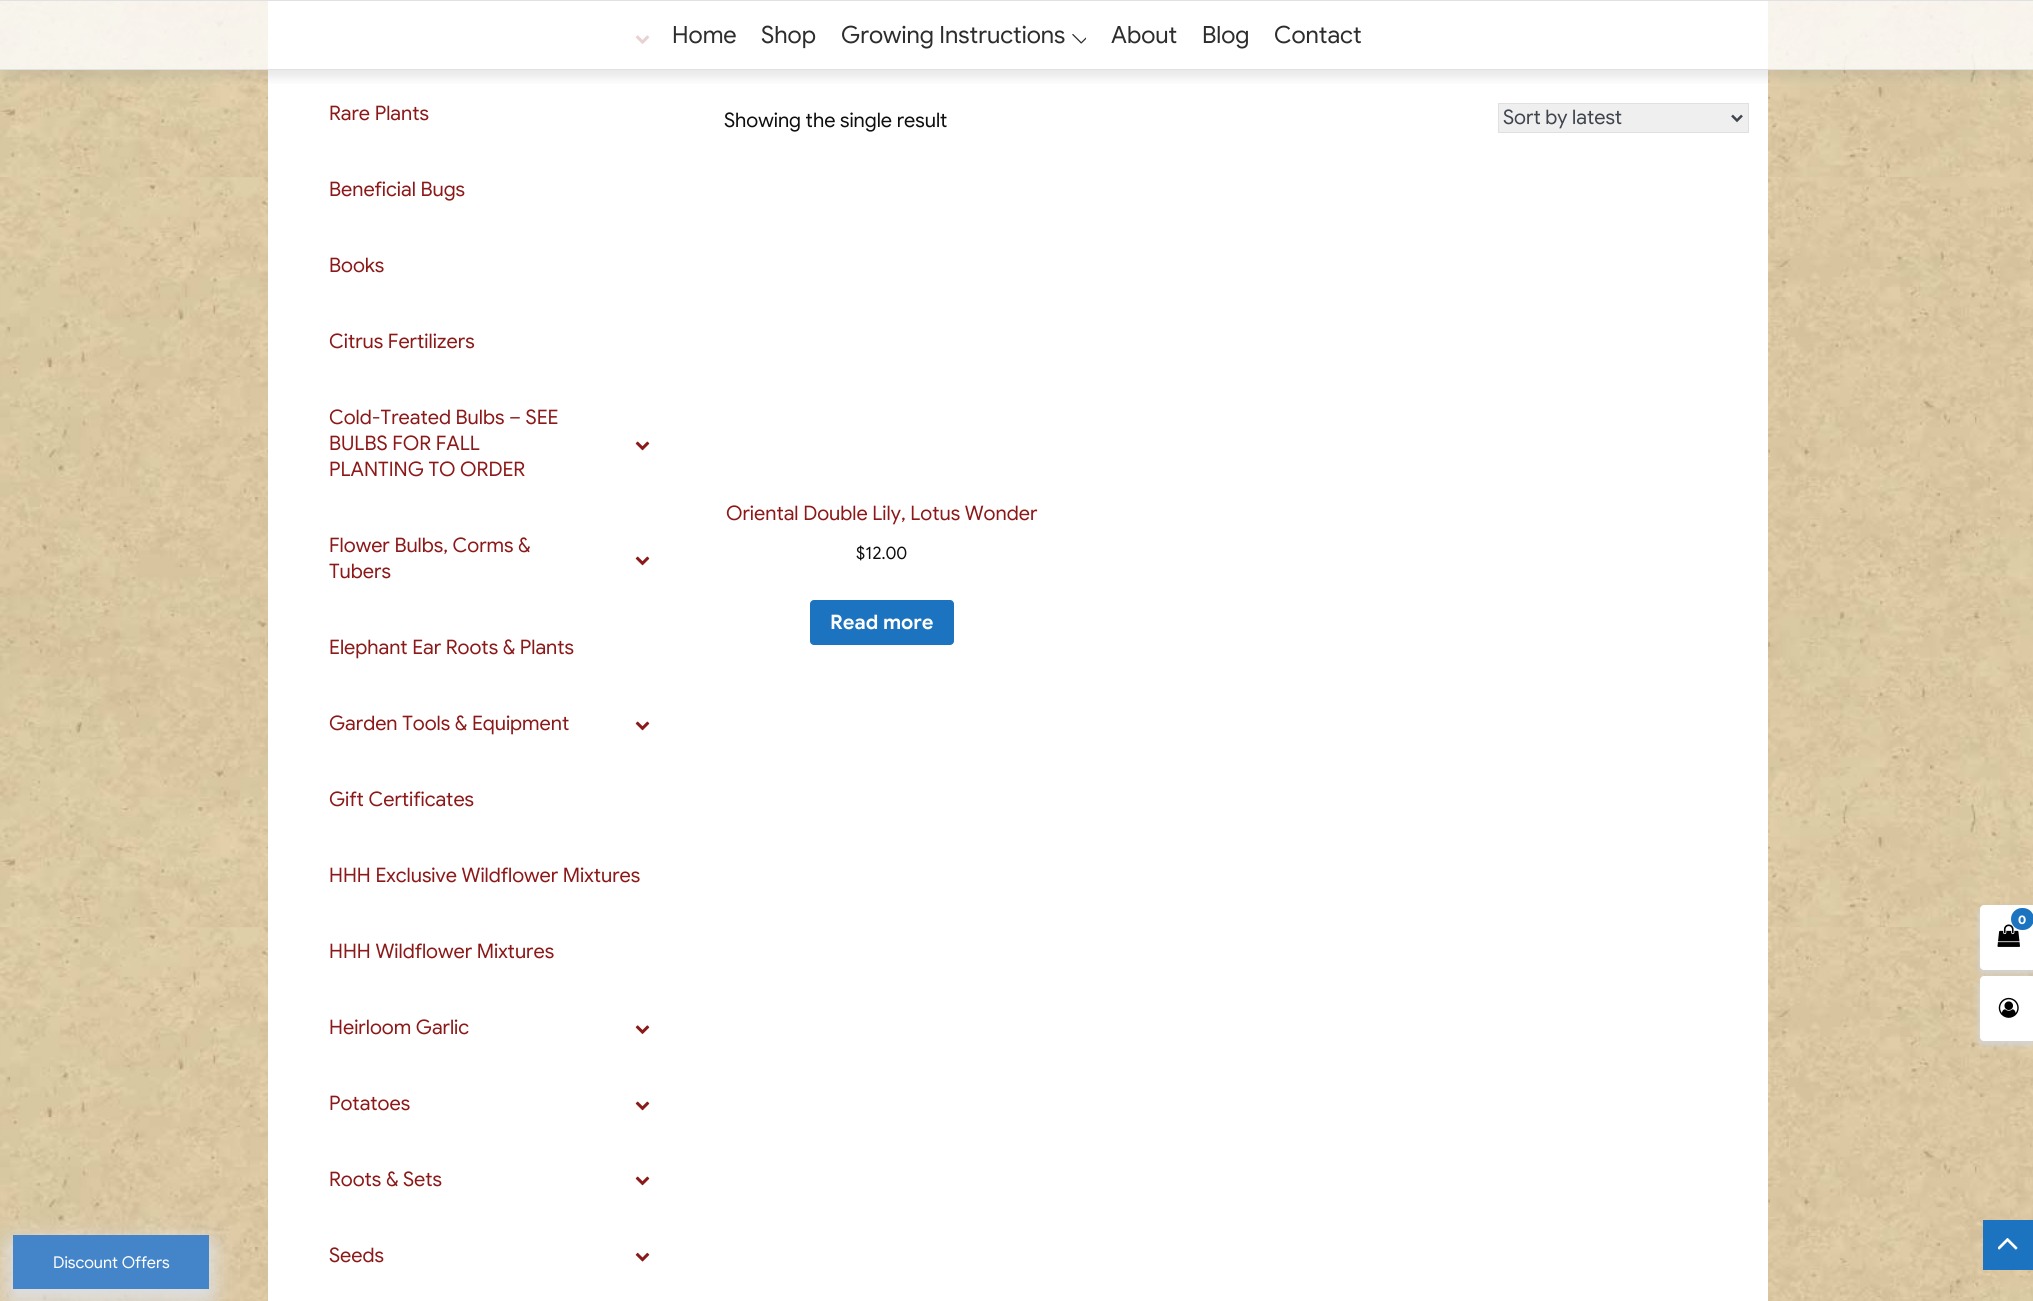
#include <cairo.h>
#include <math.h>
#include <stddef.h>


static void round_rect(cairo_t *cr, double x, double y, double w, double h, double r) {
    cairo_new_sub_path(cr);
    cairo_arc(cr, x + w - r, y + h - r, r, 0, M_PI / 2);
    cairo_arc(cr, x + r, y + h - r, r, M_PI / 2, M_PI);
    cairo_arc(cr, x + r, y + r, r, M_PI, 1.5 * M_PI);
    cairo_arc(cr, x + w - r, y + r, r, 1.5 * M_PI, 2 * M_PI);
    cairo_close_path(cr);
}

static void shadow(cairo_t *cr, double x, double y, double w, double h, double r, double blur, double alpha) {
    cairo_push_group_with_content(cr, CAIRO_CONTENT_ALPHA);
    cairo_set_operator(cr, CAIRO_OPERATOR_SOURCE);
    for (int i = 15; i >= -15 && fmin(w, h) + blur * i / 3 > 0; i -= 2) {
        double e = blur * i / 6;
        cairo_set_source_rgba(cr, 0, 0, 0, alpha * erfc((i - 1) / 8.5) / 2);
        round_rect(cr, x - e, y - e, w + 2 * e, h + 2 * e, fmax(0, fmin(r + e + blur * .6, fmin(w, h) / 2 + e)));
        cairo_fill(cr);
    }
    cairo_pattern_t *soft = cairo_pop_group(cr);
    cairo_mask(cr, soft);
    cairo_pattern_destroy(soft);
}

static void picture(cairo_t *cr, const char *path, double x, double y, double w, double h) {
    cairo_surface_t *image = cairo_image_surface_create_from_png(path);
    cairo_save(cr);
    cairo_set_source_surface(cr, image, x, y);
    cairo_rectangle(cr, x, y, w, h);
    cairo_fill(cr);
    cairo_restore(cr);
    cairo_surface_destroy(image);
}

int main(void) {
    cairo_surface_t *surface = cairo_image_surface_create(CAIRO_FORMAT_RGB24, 2033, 1301);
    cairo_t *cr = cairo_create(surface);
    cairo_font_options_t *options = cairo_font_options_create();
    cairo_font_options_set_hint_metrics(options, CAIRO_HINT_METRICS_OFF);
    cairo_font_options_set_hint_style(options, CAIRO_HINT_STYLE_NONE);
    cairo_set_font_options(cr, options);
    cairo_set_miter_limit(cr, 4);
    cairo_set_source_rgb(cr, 1, 1, 1);
    cairo_paint(cr);
    picture(cr, "img1.png", 0, 1, 2033, 1300);
    cairo_set_source_rgb(cr, 1, 1, 1);
    cairo_rectangle(cr, 268, 1, 1500, 1300);
    cairo_fill(cr);
    picture(cr, "img3.png", 635, 35, 15, 9);
    cairo_save(cr);
    cairo_rectangle(cr, 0, 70, 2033, 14);
    cairo_clip(cr);
    cairo_set_source_rgb(cr, 0.51, 0.51, 0.51);
    shadow(cr, 4, 15, 2026, 63, 0, 5, 0.18);
    cairo_restore(cr);
    cairo_set_source_rgba(cr, 1, 1, 1, 0.8);
    cairo_rectangle(cr, 0, 1, 2033, 68);
    cairo_fill(cr);
    cairo_set_source_rgb(cr, 0.882, 0.882, 0.882);
    cairo_rectangle(cr, 0, 0, 2033, 1);
    cairo_fill(cr);
    cairo_rectangle(cr, 0, 69, 2033, 1);
    cairo_fill(cr);
    cairo_select_font_face(cr, "Google Sans", CAIRO_FONT_SLANT_NORMAL, CAIRO_FONT_WEIGHT_NORMAL);
    cairo_set_font_size(cr, 23.75);
    cairo_set_source_rgb(cr, 0.176, 0.176, 0.176);
    cairo_move_to(cr, 672, 43);
    cairo_show_text(cr, "Home");
    cairo_move_to(cr, 761, 43);
    cairo_show_text(cr, "Shop");
    cairo_move_to(cr, 841, 43);
    cairo_show_text(cr, "Growing Instructions");
    picture(cr, "img2.png", 1072, 34, 14, 10);
    cairo_move_to(cr, 1111, 43);
    cairo_show_text(cr, "About");
    cairo_move_to(cr, 1202, 43);
    cairo_show_text(cr, "Blog");
    cairo_move_to(cr, 1274, 43);
    cairo_show_text(cr, "Contact");
    cairo_set_font_size(cr, 20);
    cairo_set_source_rgb(cr, 0.549, 0.098, 0.098);
    cairo_move_to(cr, 329, 120);
    cairo_show_text(cr, "Rare Plants");
    cairo_move_to(cr, 329, 196);
    cairo_show_text(cr, "Beneficial Bugs");
    cairo_move_to(cr, 329, 272);
    cairo_show_text(cr, "Books");
    cairo_move_to(cr, 329, 348);
    cairo_show_text(cr, "Citrus Fertilizers");
    cairo_move_to(cr, 329, 424);
    cairo_show_text(cr, "Cold-Treated Bulbs – SEE");
    cairo_move_to(cr, 329, 450);
    cairo_show_text(cr, "BULBS FOR FALL");
    cairo_move_to(cr, 329, 476);
    cairo_show_text(cr, "PLANTING TO ORDER");
    picture(cr, "img4.png", 635, 441, 15, 10);
    cairo_move_to(cr, 329, 552);
    cairo_show_text(cr, "Flower Bulbs, Corms &");
    cairo_move_to(cr, 329, 578);
    cairo_show_text(cr, "Tubers");
    picture(cr, "img4.png", 635, 556, 15, 10);
    cairo_move_to(cr, 329, 654);
    cairo_show_text(cr, "Elephant Ear Roots & Plants");
    cairo_move_to(cr, 329, 730);
    cairo_show_text(cr, "Garden Tools & Equipment");
    picture(cr, "img4.png", 635, 721, 15, 10);
    cairo_move_to(cr, 329, 806);
    cairo_show_text(cr, "Gift Certificates");
    cairo_move_to(cr, 329, 882);
    cairo_show_text(cr, "HHH Exclusive Wildflower Mixtures");
    cairo_move_to(cr, 329, 958);
    cairo_show_text(cr, "HHH Wildflower Mixtures");
    cairo_move_to(cr, 329, 1034);
    cairo_show_text(cr, "Heirloom Garlic");
    picture(cr, "img3.png", 635, 1025, 15, 9);
    cairo_move_to(cr, 329, 1110);
    cairo_show_text(cr, "Potatoes");
    picture(cr, "img4.png", 635, 1101, 15, 10);
    cairo_move_to(cr, 329, 1186);
    cairo_show_text(cr, "Roots & Sets");
    picture(cr, "img4.png", 635, 1176, 15, 10);
    cairo_move_to(cr, 329, 1262);
    cairo_show_text(cr, "Seeds");
    picture(cr, "img5.png", 635, 1252, 15, 10);
    cairo_set_source_rgb(cr, 0.059, 0.059, 0.059);
    cairo_move_to(cr, 724, 127);
    cairo_show_text(cr, "Showing the single result");
    cairo_set_source_rgb(cr, 0.937, 0.937, 0.937);
    cairo_rectangle(cr, 1498.5, 103.5, 250, 29);
    cairo_fill_preserve(cr);
    cairo_set_source_rgb(cr, 0.878, 0.878, 0.878);
    cairo_set_line_width(cr, 1);
    cairo_stroke(cr);
    cairo_new_path(cr);
    cairo_move_to(cr, 1732, 115.5);
    cairo_line_to(cr, 1737, 120.5);
    cairo_line_to(cr, 1742, 115.5);
    cairo_set_source_rgb(cr, 0.247, 0.267, 0.302);
    cairo_set_line_width(cr, 2.5);
    cairo_stroke(cr);
    cairo_move_to(cr, 1503, 124);
    cairo_show_text(cr, "Sort by latest");
    cairo_set_source_rgb(cr, 0.549, 0.098, 0.098);
    cairo_move_to(cr, 726, 520);
    cairo_show_text(cr, "Oriental Double Lily, Lotus Wonder");
    cairo_set_font_size(cr, 17);
    cairo_set_source_rgb(cr, 0.059, 0.059, 0.059);
    cairo_move_to(cr, 856, 559);
    cairo_show_text(cr, "$12.00");
    cairo_set_source_rgb(cr, 0.11, 0.451, 0.749);
    round_rect(cr, 810, 600, 144, 45, 4);
    cairo_fill(cr);
    cairo_select_font_face(cr, "Google Sans", CAIRO_FONT_SLANT_NORMAL, CAIRO_FONT_WEIGHT_BOLD);
    cairo_set_font_size(cr, 20);
    cairo_set_source_rgb(cr, 1, 1, 1);
    cairo_move_to(cr, 830, 629);
    cairo_show_text(cr, "Read more");
    cairo_set_source_rgb(cr, 0.831, 0.831, 0.831);
    shadow(cr, 1979, 909, 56, 65, 4, 3, 1);
    cairo_set_source_rgb(cr, 1, 1, 1);
    round_rect(cr, 1980, 905, 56, 65, 4);
    cairo_fill(cr);
    picture(cr, "img6.png", 1997, 924, 23, 23);
    cairo_set_source_rgb(cr, 0.11, 0.451, 0.749);
    round_rect(cr, 2011, 908, 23, 22, 11);
    cairo_fill(cr);
    cairo_select_font_face(cr, "Montserrat", CAIRO_FONT_SLANT_NORMAL, CAIRO_FONT_WEIGHT_BOLD);
    cairo_set_font_size(cr, 12);
    cairo_set_source_rgb(cr, 1, 1, 1);
    cairo_move_to(cr, 2018, 924);
    cairo_show_text(cr, "0");
    cairo_set_source_rgb(cr, 0.831, 0.831, 0.831);
    shadow(cr, 1979, 980, 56, 65, 4, 3, 1);
    cairo_set_source_rgb(cr, 1, 1, 1);
    round_rect(cr, 1980, 976, 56, 65, 4);
    cairo_fill(cr);
    picture(cr, "img7.png", 1998, 997, 21, 21);
    cairo_set_source_rgb(cr, 0.871, 0.871, 0.871);
    shadow(cr, 13, 1243, 196, 53, 0, 12.5, 1);
    shadow(cr, 13, 1245, 196, 54, 0, 10, 1);
    cairo_set_source_rgb(cr, 0.267, 0.522, 0.792);
    cairo_rectangle(cr, 13, 1235, 196, 54);
    cairo_fill(cr);
    cairo_select_font_face(cr, "Google Sans", CAIRO_FONT_SLANT_NORMAL, CAIRO_FONT_WEIGHT_NORMAL);
    cairo_set_font_size(cr, 16.25);
    cairo_set_source_rgb(cr, 1, 1, 1);
    cairo_move_to(cr, 53, 1268);
    cairo_show_text(cr, "Discount Offers");
    cairo_set_source_rgb(cr, 0.11, 0.451, 0.749);
    cairo_rectangle(cr, 1983, 1220, 50, 50);
    cairo_fill(cr);
    picture(cr, "img8.png", 1998, 1238, 20, 12);
    cairo_surface_write_to_png(surface, "page.png");
    cairo_font_options_destroy(options);
    cairo_destroy(cr);
    cairo_surface_destroy(surface);
    return 0;
}
